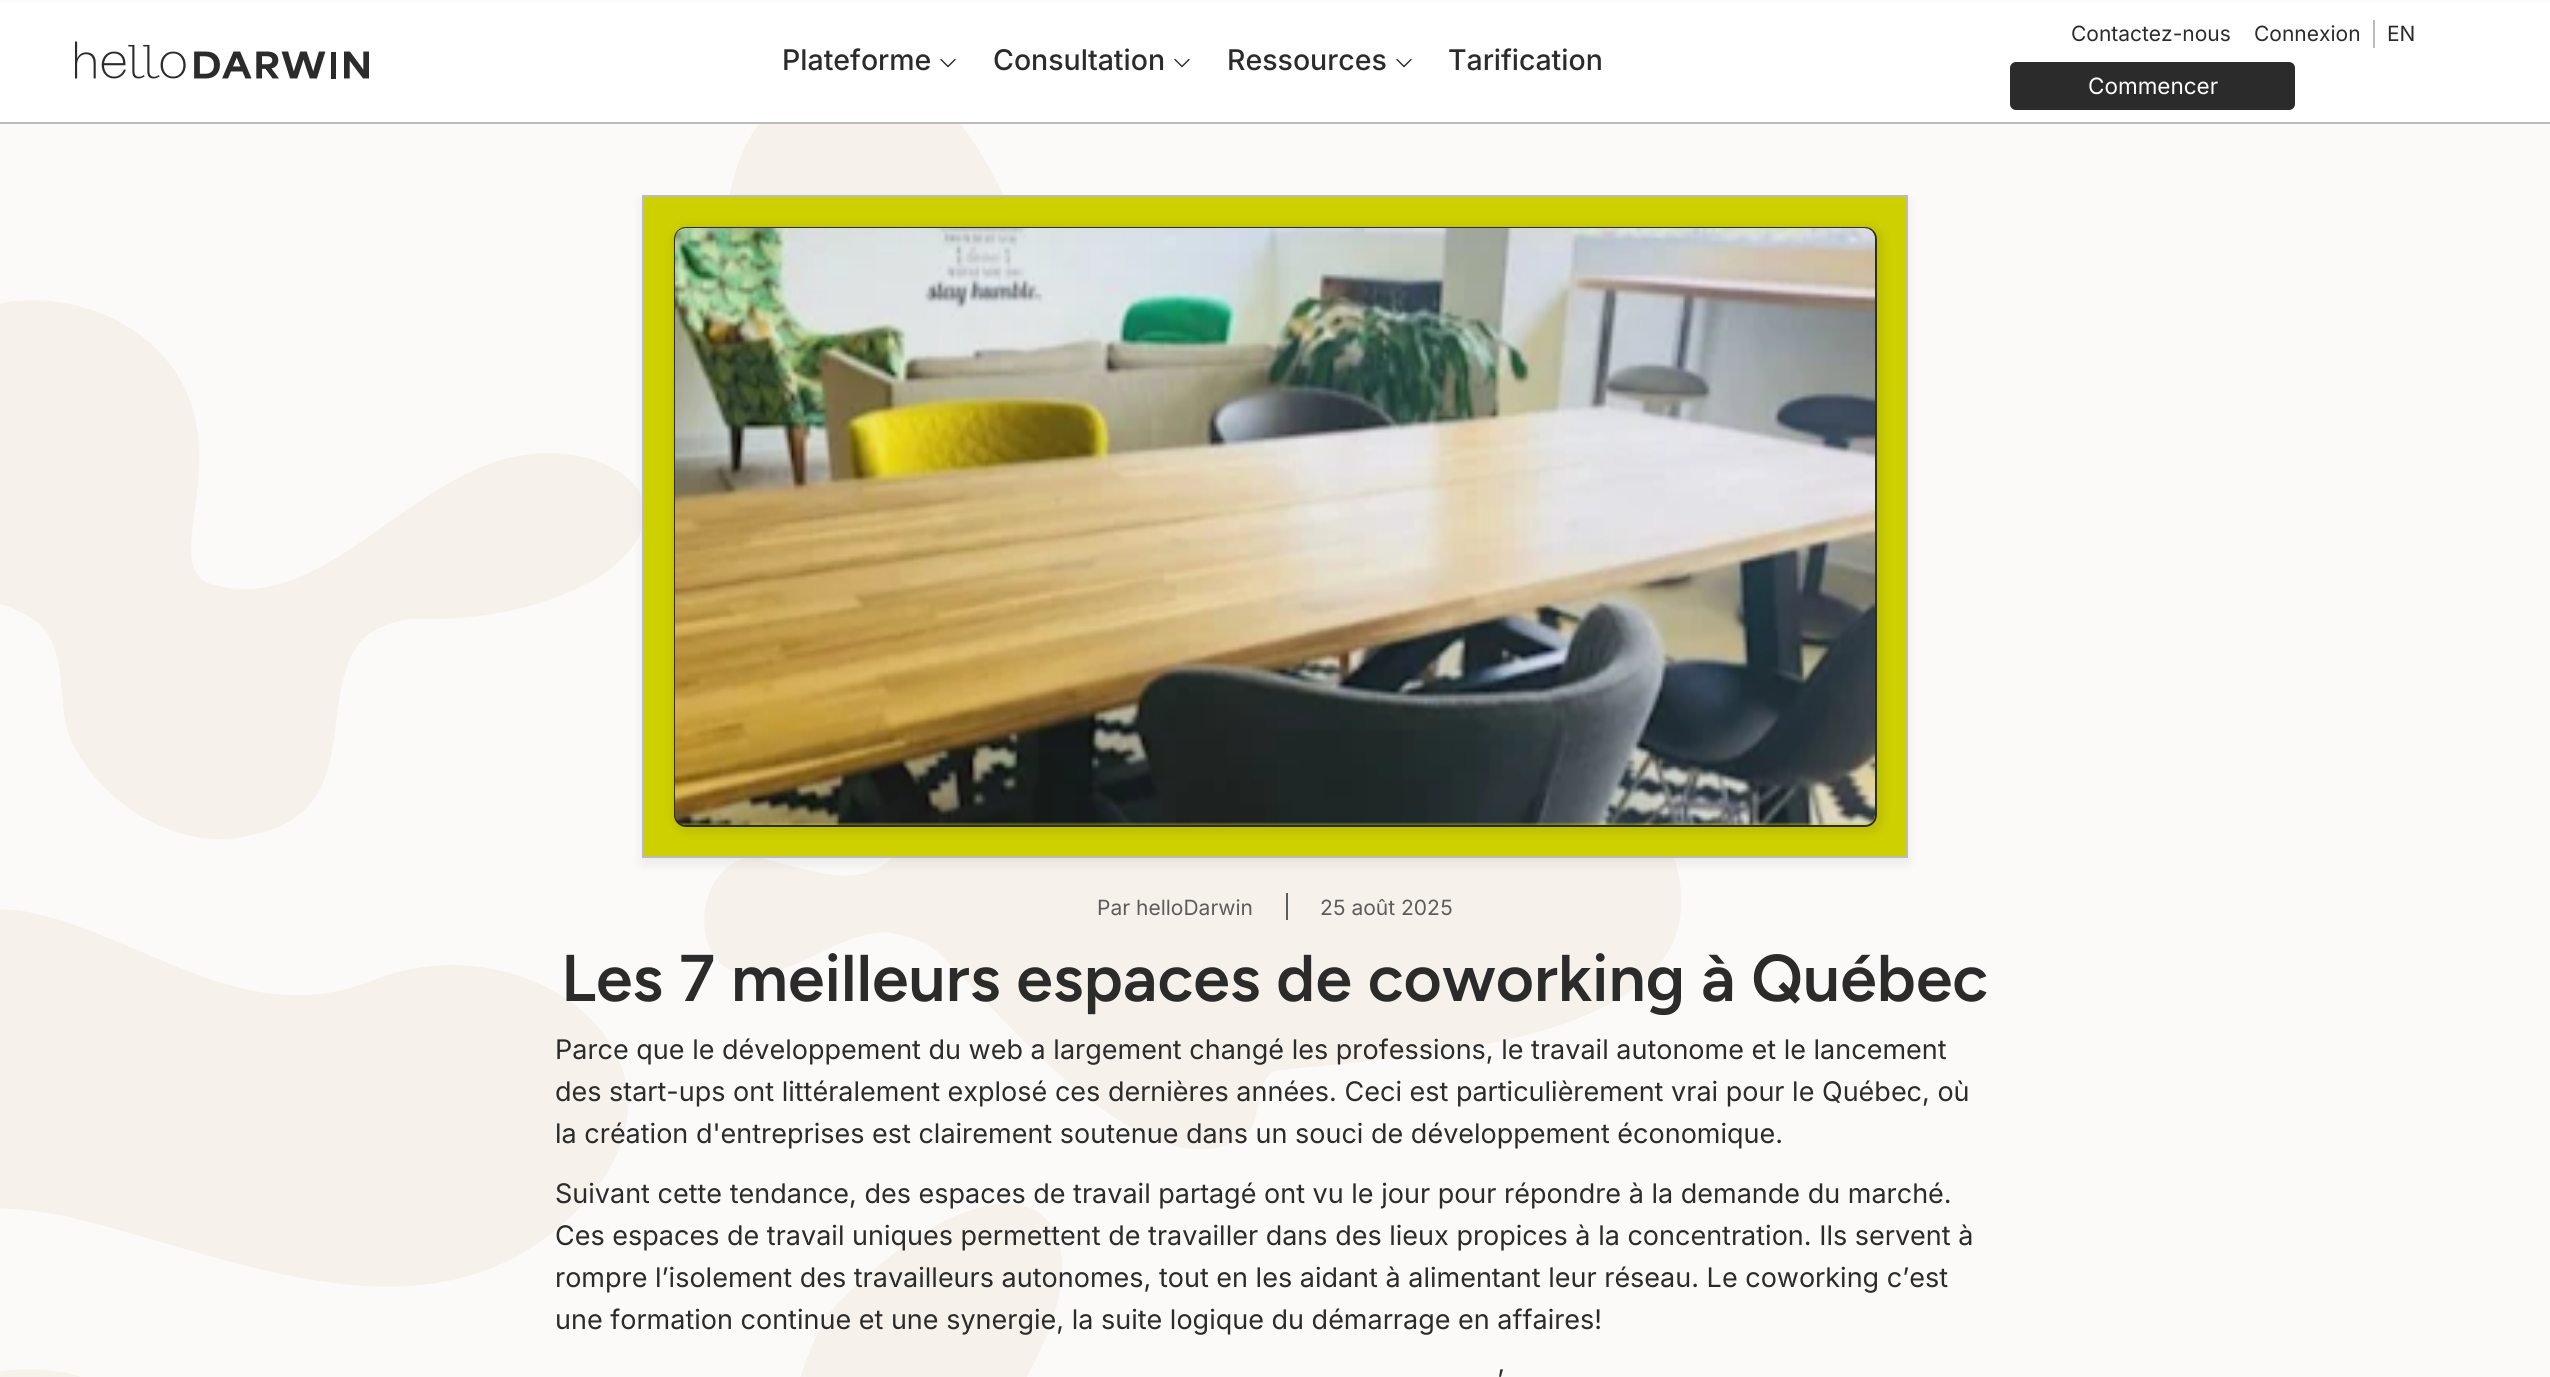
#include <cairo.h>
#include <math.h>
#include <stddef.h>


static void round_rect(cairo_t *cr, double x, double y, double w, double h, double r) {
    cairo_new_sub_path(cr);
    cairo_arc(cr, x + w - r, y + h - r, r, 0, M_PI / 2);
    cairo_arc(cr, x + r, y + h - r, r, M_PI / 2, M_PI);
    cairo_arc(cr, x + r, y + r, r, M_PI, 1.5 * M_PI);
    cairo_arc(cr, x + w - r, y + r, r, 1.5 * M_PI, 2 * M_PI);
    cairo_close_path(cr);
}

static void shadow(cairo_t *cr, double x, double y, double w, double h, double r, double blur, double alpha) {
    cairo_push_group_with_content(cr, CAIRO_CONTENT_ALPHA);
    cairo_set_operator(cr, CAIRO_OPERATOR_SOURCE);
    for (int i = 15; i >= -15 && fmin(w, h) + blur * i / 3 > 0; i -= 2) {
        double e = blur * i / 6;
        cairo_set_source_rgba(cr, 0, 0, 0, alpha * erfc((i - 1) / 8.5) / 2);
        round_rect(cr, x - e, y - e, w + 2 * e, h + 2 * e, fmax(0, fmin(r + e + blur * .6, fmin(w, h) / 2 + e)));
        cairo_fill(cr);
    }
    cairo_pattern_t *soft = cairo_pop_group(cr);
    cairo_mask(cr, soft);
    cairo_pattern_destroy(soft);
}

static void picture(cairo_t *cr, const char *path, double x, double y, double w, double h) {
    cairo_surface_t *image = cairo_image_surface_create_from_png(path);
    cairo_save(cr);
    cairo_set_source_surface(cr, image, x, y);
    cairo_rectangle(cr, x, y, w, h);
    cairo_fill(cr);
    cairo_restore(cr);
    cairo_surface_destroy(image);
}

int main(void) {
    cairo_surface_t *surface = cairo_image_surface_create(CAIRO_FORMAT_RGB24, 2550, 1377);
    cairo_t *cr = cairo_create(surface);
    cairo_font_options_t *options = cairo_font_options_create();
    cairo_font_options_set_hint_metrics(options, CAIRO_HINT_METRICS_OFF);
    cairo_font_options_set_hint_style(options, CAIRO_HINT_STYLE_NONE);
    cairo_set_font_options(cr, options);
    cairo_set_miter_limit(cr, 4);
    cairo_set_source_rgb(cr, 0.988, 0.98, 0.973);
    cairo_paint(cr);
    cairo_set_source_rgb(cr, 1, 1, 1);
    cairo_rectangle(cr, 0, 2, 2550, 120);
    cairo_fill(cr);
    cairo_set_source_rgb(cr, 0.733, 0.733, 0.733);
    cairo_rectangle(cr, 0, 122, 2550, 2);
    cairo_fill(cr);
    picture(cr, "img1.png", 75, 41, 294, 38);
    cairo_select_font_face(cr, "Inter Medium", CAIRO_FONT_SLANT_NORMAL, CAIRO_FONT_WEIGHT_NORMAL);
    cairo_set_font_size(cr, 28.5);
    cairo_set_source_rgb(cr, 0.169, 0.169, 0.169);
    cairo_move_to(cr, 782, 70);
    cairo_show_text(cr, "Plateforme");
    cairo_new_path(cr);
    cairo_move_to(cr, 955, 59.5);
    cairo_line_to(cr, 948, 66.5);
    cairo_line_to(cr, 941, 59.5);
    cairo_set_line_width(cr, 1.4);
    cairo_set_line_cap(cr, CAIRO_LINE_CAP_ROUND);
    cairo_stroke(cr);
    cairo_move_to(cr, 993, 70);
    cairo_show_text(cr, "Consultation");
    cairo_new_path(cr);
    cairo_move_to(cr, 1189, 59.5);
    cairo_line_to(cr, 1182, 66.5);
    cairo_line_to(cr, 1175, 59.5);
    cairo_stroke(cr);
    cairo_move_to(cr, 1227, 70);
    cairo_show_text(cr, "Ressources");
    cairo_new_path(cr);
    cairo_move_to(cr, 1411, 59.5);
    cairo_line_to(cr, 1404, 66.5);
    cairo_line_to(cr, 1397, 59.5);
    cairo_stroke(cr);
    cairo_move_to(cr, 1448, 70);
    cairo_show_text(cr, "Tarification");
    cairo_select_font_face(cr, "Inter", CAIRO_FONT_SLANT_NORMAL, CAIRO_FONT_WEIGHT_NORMAL);
    cairo_set_font_size(cr, 21);
    cairo_move_to(cr, 2071, 41);
    cairo_show_text(cr, "Contactez-nous");
    cairo_move_to(cr, 2254, 41);
    cairo_show_text(cr, "Connexion");
    cairo_set_source_rgb(cr, 0.733, 0.733, 0.733);
    cairo_rectangle(cr, 2373, 20, 2, 28);
    cairo_fill(cr);
    cairo_set_source_rgb(cr, 0.169, 0.169, 0.169);
    cairo_move_to(cr, 2387, 41);
    cairo_show_text(cr, "EN");
    round_rect(cr, 2011, 63, 283, 46, 5);
    cairo_fill_preserve(cr);
    cairo_set_line_width(cr, 2);
    cairo_set_line_cap(cr, CAIRO_LINE_CAP_BUTT);
    cairo_stroke(cr);
    cairo_set_font_size(cr, 22.5);
    cairo_set_source_rgb(cr, 1, 1, 1);
    cairo_move_to(cr, 2088, 94);
    cairo_show_text(cr, "Commencer");
    picture(cr, "img2.png", 0, 124, 1682, 1253);
    cairo_set_source_rgb(cr, 0.169, 0.169, 0.169);
    shadow(cr, 642, 201, 1266, 663, 0, 6, 0.08);
    cairo_set_source_rgb(cr, 0.808, 0.816, 0);
    cairo_rectangle(cr, 643, 196, 1264, 661);
    cairo_fill_preserve(cr);
    cairo_set_source_rgb(cr, 0.733, 0.733, 0.733);
    cairo_stroke(cr);
    cairo_save(cr);
    cairo_set_fill_rule(cr, CAIRO_FILL_RULE_EVEN_ODD);
    cairo_new_path(cr);
    cairo_move_to(cr, 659, 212);
    cairo_line_to(cr, 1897, 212);
    cairo_line_to(cr, 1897, 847);
    cairo_line_to(cr, 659, 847);
    cairo_close_path(cr);
    cairo_move_to(cr, 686, 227);
    cairo_line_to(cr, 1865, 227);
    cairo_curve_to(cr, 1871.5, 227, 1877, 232.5, 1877, 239);
    cairo_line_to(cr, 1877, 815);
    cairo_curve_to(cr, 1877, 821.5, 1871.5, 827, 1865, 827);
    cairo_line_to(cr, 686, 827);
    cairo_curve_to(cr, 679.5, 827, 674, 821.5, 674, 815);
    cairo_line_to(cr, 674, 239);
    cairo_curve_to(cr, 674, 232.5, 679.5, 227, 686, 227);
    cairo_close_path(cr);
    cairo_clip(cr);
    cairo_set_source_rgb(cr, 0.169, 0.169, 0.169);
    shadow(cr, 672, 225, 1212, 609, 17, 4, 0.1);
    cairo_restore(cr);
    round_rect(cr, 675, 228, 1201, 598, 11);
    cairo_set_source_rgb(cr, 0.169, 0.169, 0.169);
    cairo_stroke(cr);
    picture(cr, "img3.png", 675, 228, 1200, 597);
    cairo_set_font_size(cr, 21);
    cairo_set_source_rgb(cr, 0.361, 0.361, 0.361);
    cairo_move_to(cr, 1097, 915);
    cairo_show_text(cr, "Par helloDarwin");
    cairo_rectangle(cr, 1286, 893, 2, 27);
    cairo_fill(cr);
    cairo_move_to(cr, 1320, 915);
    cairo_show_text(cr, "25 août 2025");
    cairo_select_font_face(cr, "Figtree SemiBold", CAIRO_FONT_SLANT_NORMAL, CAIRO_FONT_WEIGHT_NORMAL);
    cairo_set_font_size(cr, 66);
    cairo_set_source_rgb(cr, 0.169, 0.169, 0.169);
    cairo_move_to(cr, 561, 1001);
    cairo_show_text(cr, "Les 7 meilleurs espaces de coworking à Québec");
    cairo_select_font_face(cr, "Inter", CAIRO_FONT_SLANT_NORMAL, CAIRO_FONT_WEIGHT_NORMAL);
    cairo_set_font_size(cr, 27);
    cairo_move_to(cr, 555, 1059);
    cairo_show_text(cr, "Parce que le développement du web a largement changé les professions, le travail autonome et le lancement");
    cairo_move_to(cr, 555, 1101);
    cairo_show_text(cr, "des start-ups ont littéralement explosé ces dernières années. Ceci est particulièrement vrai pour le Québec, où");
    cairo_move_to(cr, 555, 1143);
    cairo_show_text(cr, "la création d'entreprises est clairement soutenue dans un souci de développement économique.");
    cairo_move_to(cr, 555, 1203);
    cairo_show_text(cr, "Suivant cette tendance, des espaces de travail partagé ont vu le jour pour répondre à la demande du marché.");
    cairo_move_to(cr, 555, 1245);
    cairo_show_text(cr, "Ces espaces de travail uniques permettent de travailler dans des lieux propices à la concentration. Ils servent à");
    cairo_move_to(cr, 555, 1287);
    cairo_show_text(cr, "rompre l’isolement des travailleurs autonomes, tout en les aidant à alimentant leur réseau. Le coworking c’est");
    cairo_move_to(cr, 555, 1329);
    cairo_show_text(cr, "une formation continue et une synergie, la suite logique du démarrage en affaires!");
    cairo_move_to(cr, 1497, 1389);
    cairo_show_text(cr, "’");
    cairo_surface_write_to_png(surface, "page.png");
    cairo_font_options_destroy(options);
    cairo_destroy(cr);
    cairo_surface_destroy(surface);
    return 0;
}
